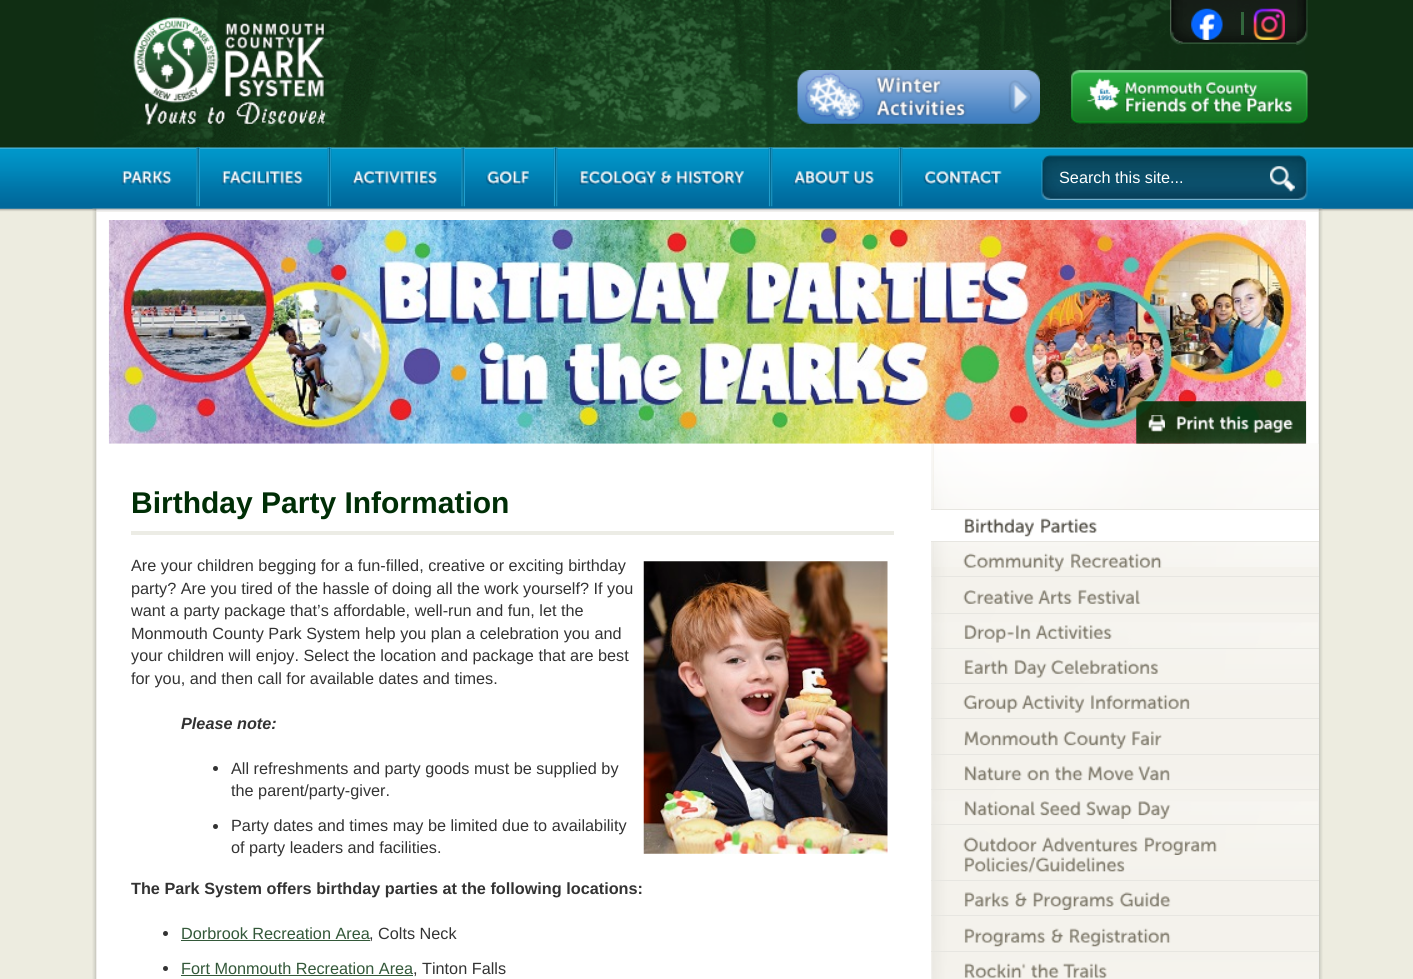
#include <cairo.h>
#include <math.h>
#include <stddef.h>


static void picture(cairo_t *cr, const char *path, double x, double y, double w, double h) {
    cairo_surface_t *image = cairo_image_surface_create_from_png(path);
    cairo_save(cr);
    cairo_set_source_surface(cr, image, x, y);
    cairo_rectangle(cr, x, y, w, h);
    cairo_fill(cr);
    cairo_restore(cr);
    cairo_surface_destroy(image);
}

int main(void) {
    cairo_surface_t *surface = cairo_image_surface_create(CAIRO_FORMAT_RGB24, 1413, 979);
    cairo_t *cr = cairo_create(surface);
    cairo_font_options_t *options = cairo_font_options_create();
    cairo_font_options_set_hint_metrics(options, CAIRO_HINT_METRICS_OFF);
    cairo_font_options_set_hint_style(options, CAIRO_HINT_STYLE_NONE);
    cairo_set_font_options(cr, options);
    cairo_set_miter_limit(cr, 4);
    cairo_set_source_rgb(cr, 0.929, 0.925, 0.878);
    cairo_paint(cr);
    cairo_set_source_rgb(cr, 0.063, 0.18, 0.078);
    cairo_rectangle(cr, 0, 0, 1413, 148);
    cairo_fill(cr);
    picture(cr, "img1.png", 94, 0, 1211, 148);
    picture(cr, "img2.png", 133, 17, 193, 109);
    picture(cr, "img3.png", 1296, 0, 12, 45);
    picture(cr, "img4.png", 1170, 0, 127, 45);
    picture(cr, "img5.png", 1191, 8, 32, 32);
    cairo_set_source_rgb(cr, 0.196, 0.4, 0.235);
    cairo_rectangle(cr, 1241, 12, 3, 23);
    cairo_fill(cr);
    picture(cr, "img6.png", 1253, 8, 32, 32);
    picture(cr, "img7.png", 797, 70, 243, 54);
    picture(cr, "img8.png", 1071, 70, 237, 54);
    picture(cr, "img9.png", 1087, 78, 33, 34);
    picture(cr, "img10.png", 1123, 82, 79, 14);
    picture(cr, "img11.png", 1205, 82, 53, 16);
    picture(cr, "img12.png", 1125, 97, 62, 16);
    picture(cr, "img13.png", 1190, 97, 19, 16);
    picture(cr, "img14.png", 1212, 97, 30, 16);
    picture(cr, "img15.png", 1246, 97, 47, 16);
    picture(cr, "img36.png", 92, 211, 1231, 768);
    picture(cr, "img16.png", 0, 147, 1413, 65);
    picture(cr, "img17.png", 92, 208, 1231, 4);
    picture(cr, "img18.png", 121, 171, 51, 14);
    picture(cr, "img19.png", 196, 147, 4, 60);
    picture(cr, "img20.png", 221, 171, 82, 14);
    picture(cr, "img21.png", 327, 147, 5, 60);
    picture(cr, "img22.png", 351, 171, 86, 14);
    picture(cr, "img23.png", 461, 147, 4, 60);
    picture(cr, "img24.png", 486, 171, 43, 14);
    picture(cr, "img25.png", 553, 147, 5, 60);
    picture(cr, "img26.png", 579, 171, 78, 14);
    picture(cr, "img27.png", 660, 171, 12, 14);
    picture(cr, "img28.png", 675, 171, 69, 14);
    picture(cr, "img29.png", 768, 147, 5, 60);
    picture(cr, "img30.png", 793, 171, 57, 14);
    picture(cr, "img31.png", 852, 171, 22, 14);
    picture(cr, "img32.png", 898, 147, 5, 60);
    picture(cr, "img33.png", 923, 171, 79, 14);
    picture(cr, "img34.png", 1041, 155, 267, 45);
    cairo_select_font_face(cr, "Liberation Sans", CAIRO_FONT_SLANT_NORMAL, CAIRO_FONT_WEIGHT_NORMAL);
    cairo_set_font_size(cr, 16.25);
    cairo_set_source_rgb(cr, 1, 1, 1);
    cairo_move_to(cr, 1059, 183);
    cairo_show_text(cr, "Search this site...");
    picture(cr, "img35.png", 1270, 166, 25, 26);
    picture(cr, "img44.png", 931, 443, 387, 536);
    picture(cr, "img37.png", 108, 220, 1199, 224);
    picture(cr, "img38.png", 1136, 401, 171, 43);
    picture(cr, "img39.png", 1148, 415, 17, 17);
    picture(cr, "img40.png", 1176, 416, 39, 15);
    picture(cr, "img41.png", 1219, 416, 30, 15);
    picture(cr, "img42.png", 1253, 419, 40, 14);
    cairo_set_source_rgb(cr, 0.925, 0.922, 0.898);
    cairo_rectangle(cr, 131, 531, 763, 4);
    cairo_fill(cr);
    cairo_select_font_face(cr, "Liberation Sans", CAIRO_FONT_SLANT_NORMAL, CAIRO_FONT_WEIGHT_BOLD);
    cairo_set_font_size(cr, 30);
    cairo_set_source_rgb(cr, 0, 0.18, 0.027);
    cairo_move_to(cr, 131, 513);
    cairo_show_text(cr, "Birthday Party Information");
    cairo_select_font_face(cr, "Liberation Sans", CAIRO_FONT_SLANT_NORMAL, CAIRO_FONT_WEIGHT_NORMAL);
    cairo_set_font_size(cr, 16.25);
    cairo_set_source_rgb(cr, 0.2, 0.2, 0.2);
    cairo_move_to(cr, 131, 571);
    cairo_show_text(cr, "Are your children begging for a fun-filled, creative or exciting birthday");
    picture(cr, "img43.png", 643, 561, 245, 293);
    cairo_move_to(cr, 131, 594);
    cairo_show_text(cr, "party? Are you tired of the hassle of doing all the work yourself? If you");
    cairo_move_to(cr, 131, 616);
    cairo_show_text(cr, "want a party package that’s affordable, well-run and fun, let the");
    cairo_move_to(cr, 131, 639);
    cairo_show_text(cr, "Monmouth County Park System help you plan a celebration you and");
    cairo_move_to(cr, 131, 661);
    cairo_show_text(cr, "your children will enjoy. Select the location and package that are best");
    cairo_move_to(cr, 131, 684);
    cairo_show_text(cr, "for you, and then call for available dates and times.");
    cairo_select_font_face(cr, "Liberation Sans", CAIRO_FONT_SLANT_ITALIC, CAIRO_FONT_WEIGHT_BOLD);
    cairo_move_to(cr, 181, 729);
    cairo_show_text(cr, "Please note:");
    cairo_new_path(cr);
    cairo_arc(cr, 215.5, 768.5, 2.5, 0, 2 * M_PI);
    cairo_fill(cr);
    cairo_select_font_face(cr, "Liberation Sans", CAIRO_FONT_SLANT_NORMAL, CAIRO_FONT_WEIGHT_NORMAL);
    cairo_move_to(cr, 231, 774);
    cairo_show_text(cr, "All refreshments and party goods must be supplied by");
    cairo_move_to(cr, 231, 796);
    cairo_show_text(cr, "the parent/party-giver.");
    cairo_new_path(cr);
    cairo_arc(cr, 215.5, 826.5, 2.5, 0, 2 * M_PI);
    cairo_fill(cr);
    cairo_move_to(cr, 231, 831);
    cairo_show_text(cr, "Party dates and times may be limited due to availability");
    cairo_move_to(cr, 231, 853);
    cairo_show_text(cr, "of party leaders and facilities.");
    cairo_select_font_face(cr, "Liberation Sans", CAIRO_FONT_SLANT_NORMAL, CAIRO_FONT_WEIGHT_BOLD);
    cairo_move_to(cr, 131, 894);
    cairo_show_text(cr, "The Park System offers birthday parties at the following locations:");
    cairo_new_path(cr);
    cairo_arc(cr, 165.5, 933.5, 2.5, 0, 2 * M_PI);
    cairo_fill(cr);
    cairo_select_font_face(cr, "Liberation Sans", CAIRO_FONT_SLANT_NORMAL, CAIRO_FONT_WEIGHT_NORMAL);
    cairo_set_source_rgb(cr, 0.2, 0.345, 0.224);
    cairo_move_to(cr, 181, 939);
    cairo_show_text(cr, "Dorbrook Recreation Area");
    cairo_rectangle(cr, 181, 940, 189, 1);
    cairo_fill(cr);
    cairo_set_source_rgb(cr, 0.2, 0.2, 0.2);
    cairo_move_to(cr, 369, 939);
    cairo_show_text(cr, ", Colts Neck");
    cairo_new_path(cr);
    cairo_arc(cr, 165.5, 968.5, 2.5, 0, 2 * M_PI);
    cairo_fill(cr);
    cairo_set_source_rgb(cr, 0.2, 0.345, 0.224);
    cairo_move_to(cr, 181, 974);
    cairo_show_text(cr, "Fort Monmouth Recreation Area");
    cairo_rectangle(cr, 181, 975, 232, 1);
    cairo_fill(cr);
    cairo_set_source_rgb(cr, 0.2, 0.2, 0.2);
    cairo_move_to(cr, 413, 974);
    cairo_show_text(cr, ", Tinton Falls");
    picture(cr, "img45.png", 931, 444, 388, 123);
    cairo_set_source_rgb(cr, 0.906, 0.902, 0.882);
    cairo_rectangle(cr, 931, 509, 388, 1);
    cairo_fill(cr);
    cairo_set_source_rgb(cr, 1, 1, 1);
    cairo_rectangle(cr, 931, 510, 388, 31);
    cairo_fill(cr);
    picture(cr, "img46.png", 964, 518, 70, 19);
    picture(cr, "img47.png", 1041, 518, 56, 15);
    cairo_set_source_rgb(cr, 0.906, 0.902, 0.882);
    cairo_rectangle(cr, 931, 541, 388, 1);
    cairo_fill(cr);
    picture(cr, "img48.png", 963, 553, 101, 19);
    picture(cr, "img49.png", 1071, 553, 91, 15);
    cairo_rectangle(cr, 931, 576, 388, 1);
    cairo_fill(cr);
    picture(cr, "img50.png", 963, 590, 71, 14);
    picture(cr, "img51.png", 1038, 590, 34, 14);
    picture(cr, "img52.png", 1078, 589, 63, 15);
    cairo_rectangle(cr, 931, 613, 388, 1);
    cairo_fill(cr);
    picture(cr, "img53.png", 964, 624, 67, 19);
    picture(cr, "img54.png", 1036, 625, 76, 14);
    cairo_rectangle(cr, 931, 648, 388, 1);
    cairo_fill(cr);
    picture(cr, "img55.png", 964, 659, 44, 15);
    picture(cr, "img56.png", 1014, 659, 33, 19);
    picture(cr, "img57.png", 1051, 659, 108, 15);
    cairo_rectangle(cr, 931, 683, 388, 1);
    cairo_fill(cr);
    picture(cr, "img58.png", 963, 695, 55, 18);
    picture(cr, "img59.png", 1022, 695, 63, 18);
    picture(cr, "img60.png", 1091, 694, 99, 15);
    cairo_rectangle(cr, 931, 718, 388, 1);
    cairo_fill(cr);
    picture(cr, "img61.png", 964, 731, 94, 15);
    picture(cr, "img62.png", 1063, 731, 64, 18);
    picture(cr, "img63.png", 1132, 731, 30, 15);
    cairo_rectangle(cr, 931, 754, 388, 1);
    cairo_fill(cr);
    picture(cr, "img64.png", 964, 766, 58, 15);
    picture(cr, "img65.png", 1027, 769, 22, 12);
    picture(cr, "img66.png", 1054, 766, 29, 15);
    picture(cr, "img67.png", 1087, 766, 47, 15);
    picture(cr, "img68.png", 1138, 766, 32, 15);
    cairo_rectangle(cr, 931, 789, 388, 1);
    cairo_fill(cr);
    picture(cr, "img69.png", 964, 801, 72, 15);
    picture(cr, "img70.png", 1040, 801, 41, 15);
    picture(cr, "img71.png", 1086, 801, 46, 18);
    picture(cr, "img72.png", 1138, 801, 33, 18);
    cairo_rectangle(cr, 931, 824, 388, 1);
    cairo_fill(cr);
    picture(cr, "img73.png", 963, 837, 74, 15);
    picture(cr, "img74.png", 1042, 837, 96, 15);
    picture(cr, "img75.png", 1144, 837, 73, 18);
    picture(cr, "img76.png", 964, 857, 161, 16);
    cairo_rectangle(cr, 931, 880, 388, 1);
    cairo_fill(cr);
    picture(cr, "img77.png", 964, 892, 45, 15);
    picture(cr, "img78.png", 1015, 892, 13, 15);
    picture(cr, "img79.png", 1033, 892, 81, 18);
    picture(cr, "img80.png", 1119, 892, 52, 15);
    cairo_rectangle(cr, 931, 915, 388, 1);
    cairo_fill(cr);
    picture(cr, "img81.png", 964, 928, 82, 19);
    picture(cr, "img82.png", 1051, 928, 13, 15);
    picture(cr, "img83.png", 1069, 928, 102, 19);
    cairo_rectangle(cr, 931, 951, 388, 1);
    cairo_fill(cr);
    picture(cr, "img84.png", 964, 963, 62, 15);
    picture(cr, "img85.png", 1031, 963, 28, 15);
    picture(cr, "img86.png", 1062, 963, 45, 15);
    cairo_surface_write_to_png(surface, "page.png");
    cairo_font_options_destroy(options);
    cairo_destroy(cr);
    cairo_surface_destroy(surface);
    return 0;
}
